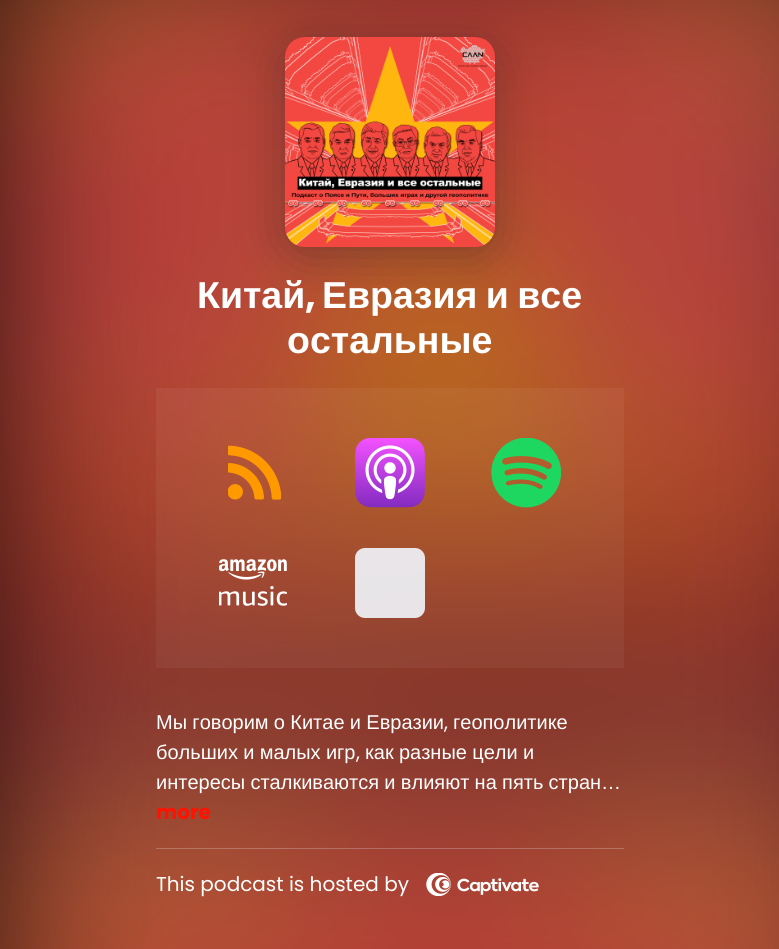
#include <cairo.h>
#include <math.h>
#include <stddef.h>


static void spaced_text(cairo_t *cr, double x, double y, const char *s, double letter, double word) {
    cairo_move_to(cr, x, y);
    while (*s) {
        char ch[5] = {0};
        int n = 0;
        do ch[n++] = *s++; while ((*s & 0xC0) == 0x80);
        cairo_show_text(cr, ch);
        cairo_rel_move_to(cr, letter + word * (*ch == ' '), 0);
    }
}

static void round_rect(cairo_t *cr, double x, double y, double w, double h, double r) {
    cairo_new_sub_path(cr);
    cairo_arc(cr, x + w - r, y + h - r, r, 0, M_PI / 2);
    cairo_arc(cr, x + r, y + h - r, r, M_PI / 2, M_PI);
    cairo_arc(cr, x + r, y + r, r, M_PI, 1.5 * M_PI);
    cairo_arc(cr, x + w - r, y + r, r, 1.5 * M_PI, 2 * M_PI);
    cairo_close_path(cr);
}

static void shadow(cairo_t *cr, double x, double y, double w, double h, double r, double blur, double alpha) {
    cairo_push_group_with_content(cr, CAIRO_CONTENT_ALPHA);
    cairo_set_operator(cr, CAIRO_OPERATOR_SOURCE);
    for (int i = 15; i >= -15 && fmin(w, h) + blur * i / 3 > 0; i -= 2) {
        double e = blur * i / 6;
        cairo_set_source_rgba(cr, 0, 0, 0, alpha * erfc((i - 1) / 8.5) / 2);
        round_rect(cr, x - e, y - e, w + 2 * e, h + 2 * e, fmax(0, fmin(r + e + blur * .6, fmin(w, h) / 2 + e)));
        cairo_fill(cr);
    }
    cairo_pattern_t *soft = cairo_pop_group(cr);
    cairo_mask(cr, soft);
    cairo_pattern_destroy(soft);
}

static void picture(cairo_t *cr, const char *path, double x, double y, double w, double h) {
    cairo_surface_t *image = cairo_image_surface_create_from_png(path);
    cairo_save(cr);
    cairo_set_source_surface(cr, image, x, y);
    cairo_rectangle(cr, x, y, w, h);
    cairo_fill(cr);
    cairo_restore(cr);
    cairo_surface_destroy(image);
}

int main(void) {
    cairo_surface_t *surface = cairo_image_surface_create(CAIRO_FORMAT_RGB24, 779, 949);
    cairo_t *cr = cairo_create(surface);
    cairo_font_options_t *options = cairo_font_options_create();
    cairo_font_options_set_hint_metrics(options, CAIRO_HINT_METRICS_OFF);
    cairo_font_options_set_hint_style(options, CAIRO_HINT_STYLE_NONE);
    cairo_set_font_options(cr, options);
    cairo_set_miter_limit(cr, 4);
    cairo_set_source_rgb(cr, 0, 0, 0);
    cairo_paint(cr);
    picture(cr, "img1.png", 0, 0, 779, 949);
    cairo_set_source_rgb(cr, 0.122, 0.129, 0.141);
    shadow(cr, 285, 45, 210, 210, 20, 25, 0.38);
    picture(cr, "img2.png", 285, 37, 210, 210);
    cairo_select_font_face(cr, "Liberation Sans", CAIRO_FONT_SLANT_NORMAL, CAIRO_FONT_WEIGHT_BOLD);
    cairo_set_font_size(cr, 37.5);
    cairo_set_source_rgb(cr, 1, 1, 1);
    cairo_move_to(cr, 197, 308);
    cairo_show_text(cr, "Китай");
    cairo_select_font_face(cr, "Poppins", CAIRO_FONT_SLANT_NORMAL, CAIRO_FONT_WEIGHT_BOLD);
    cairo_move_to(cr, 305, 308);
    cairo_show_text(cr, ",");
    cairo_select_font_face(cr, "Liberation Sans", CAIRO_FONT_SLANT_NORMAL, CAIRO_FONT_WEIGHT_BOLD);
    spaced_text(cr, 322, 308, "Евразия и все", 0, -2);
    cairo_move_to(cr, 287, 353);
    cairo_show_text(cr, "остальные");
    cairo_set_source_rgba(cr, 1, 1, 1, 0.05);
    cairo_rectangle(cr, 156, 388, 468, 280);
    cairo_fill(cr);
    picture(cr, "img3.png", 228, 445, 53, 55);
    picture(cr, "img4.png", 355, 438, 70, 70);
    picture(cr, "img5.png", 491, 438, 70, 70);
    picture(cr, "img6.png", 219, 559, 68, 47);
    cairo_set_source_rgba(cr, 0.937, 0.953, 0.98, 0.91);
    round_rect(cr, 355, 548, 70, 70, 10);
    cairo_fill(cr);
    cairo_select_font_face(cr, "Liberation Sans", CAIRO_FONT_SLANT_NORMAL, CAIRO_FONT_WEIGHT_NORMAL);
    cairo_set_font_size(cr, 20);
    cairo_set_source_rgb(cr, 1, 1, 1);
    spaced_text(cr, 156, 729, "Мы говорим о Китае и Евразии", 0, -0.25);
    cairo_select_font_face(cr, "Poppins", CAIRO_FONT_SLANT_NORMAL, CAIRO_FONT_WEIGHT_NORMAL);
    cairo_move_to(cr, 444, 729);
    cairo_show_text(cr, ",");
    cairo_select_font_face(cr, "Liberation Sans", CAIRO_FONT_SLANT_NORMAL, CAIRO_FONT_WEIGHT_NORMAL);
    cairo_move_to(cr, 453, 729);
    cairo_show_text(cr, "геополитике");
    spaced_text(cr, 156, 759, "больших и малых игр", 0, -0.25);
    cairo_select_font_face(cr, "Poppins", CAIRO_FONT_SLANT_NORMAL, CAIRO_FONT_WEIGHT_NORMAL);
    cairo_move_to(cr, 356, 759);
    cairo_show_text(cr, ",");
    cairo_select_font_face(cr, "Liberation Sans", CAIRO_FONT_SLANT_NORMAL, CAIRO_FONT_WEIGHT_NORMAL);
    spaced_text(cr, 365, 759, "как разные цели и", 0, -0.25);
    spaced_text(cr, 156, 789, "интересы сталкиваются и влияют на пять стран…", 0, -0.25);
    cairo_select_font_face(cr, "Poppins", CAIRO_FONT_SLANT_NORMAL, CAIRO_FONT_WEIGHT_BOLD);
    cairo_set_source_rgb(cr, 1, 0.078, 0);
    cairo_move_to(cr, 156, 819);
    cairo_show_text(cr, "more");
    cairo_set_source_rgba(cr, 0.937, 0.953, 0.98, 0.25);
    cairo_rectangle(cr, 156, 848, 468, 1);
    cairo_fill(cr);
    cairo_select_font_face(cr, "Poppins", CAIRO_FONT_SLANT_NORMAL, CAIRO_FONT_WEIGHT_NORMAL);
    cairo_set_source_rgb(cr, 1, 1, 1);
    cairo_move_to(cr, 156, 891);
    cairo_show_text(cr, "This podcast is hosted by");
    picture(cr, "img7.png", 426, 873, 113, 23);
    cairo_surface_write_to_png(surface, "page.png");
    cairo_font_options_destroy(options);
    cairo_destroy(cr);
    cairo_surface_destroy(surface);
    return 0;
}
